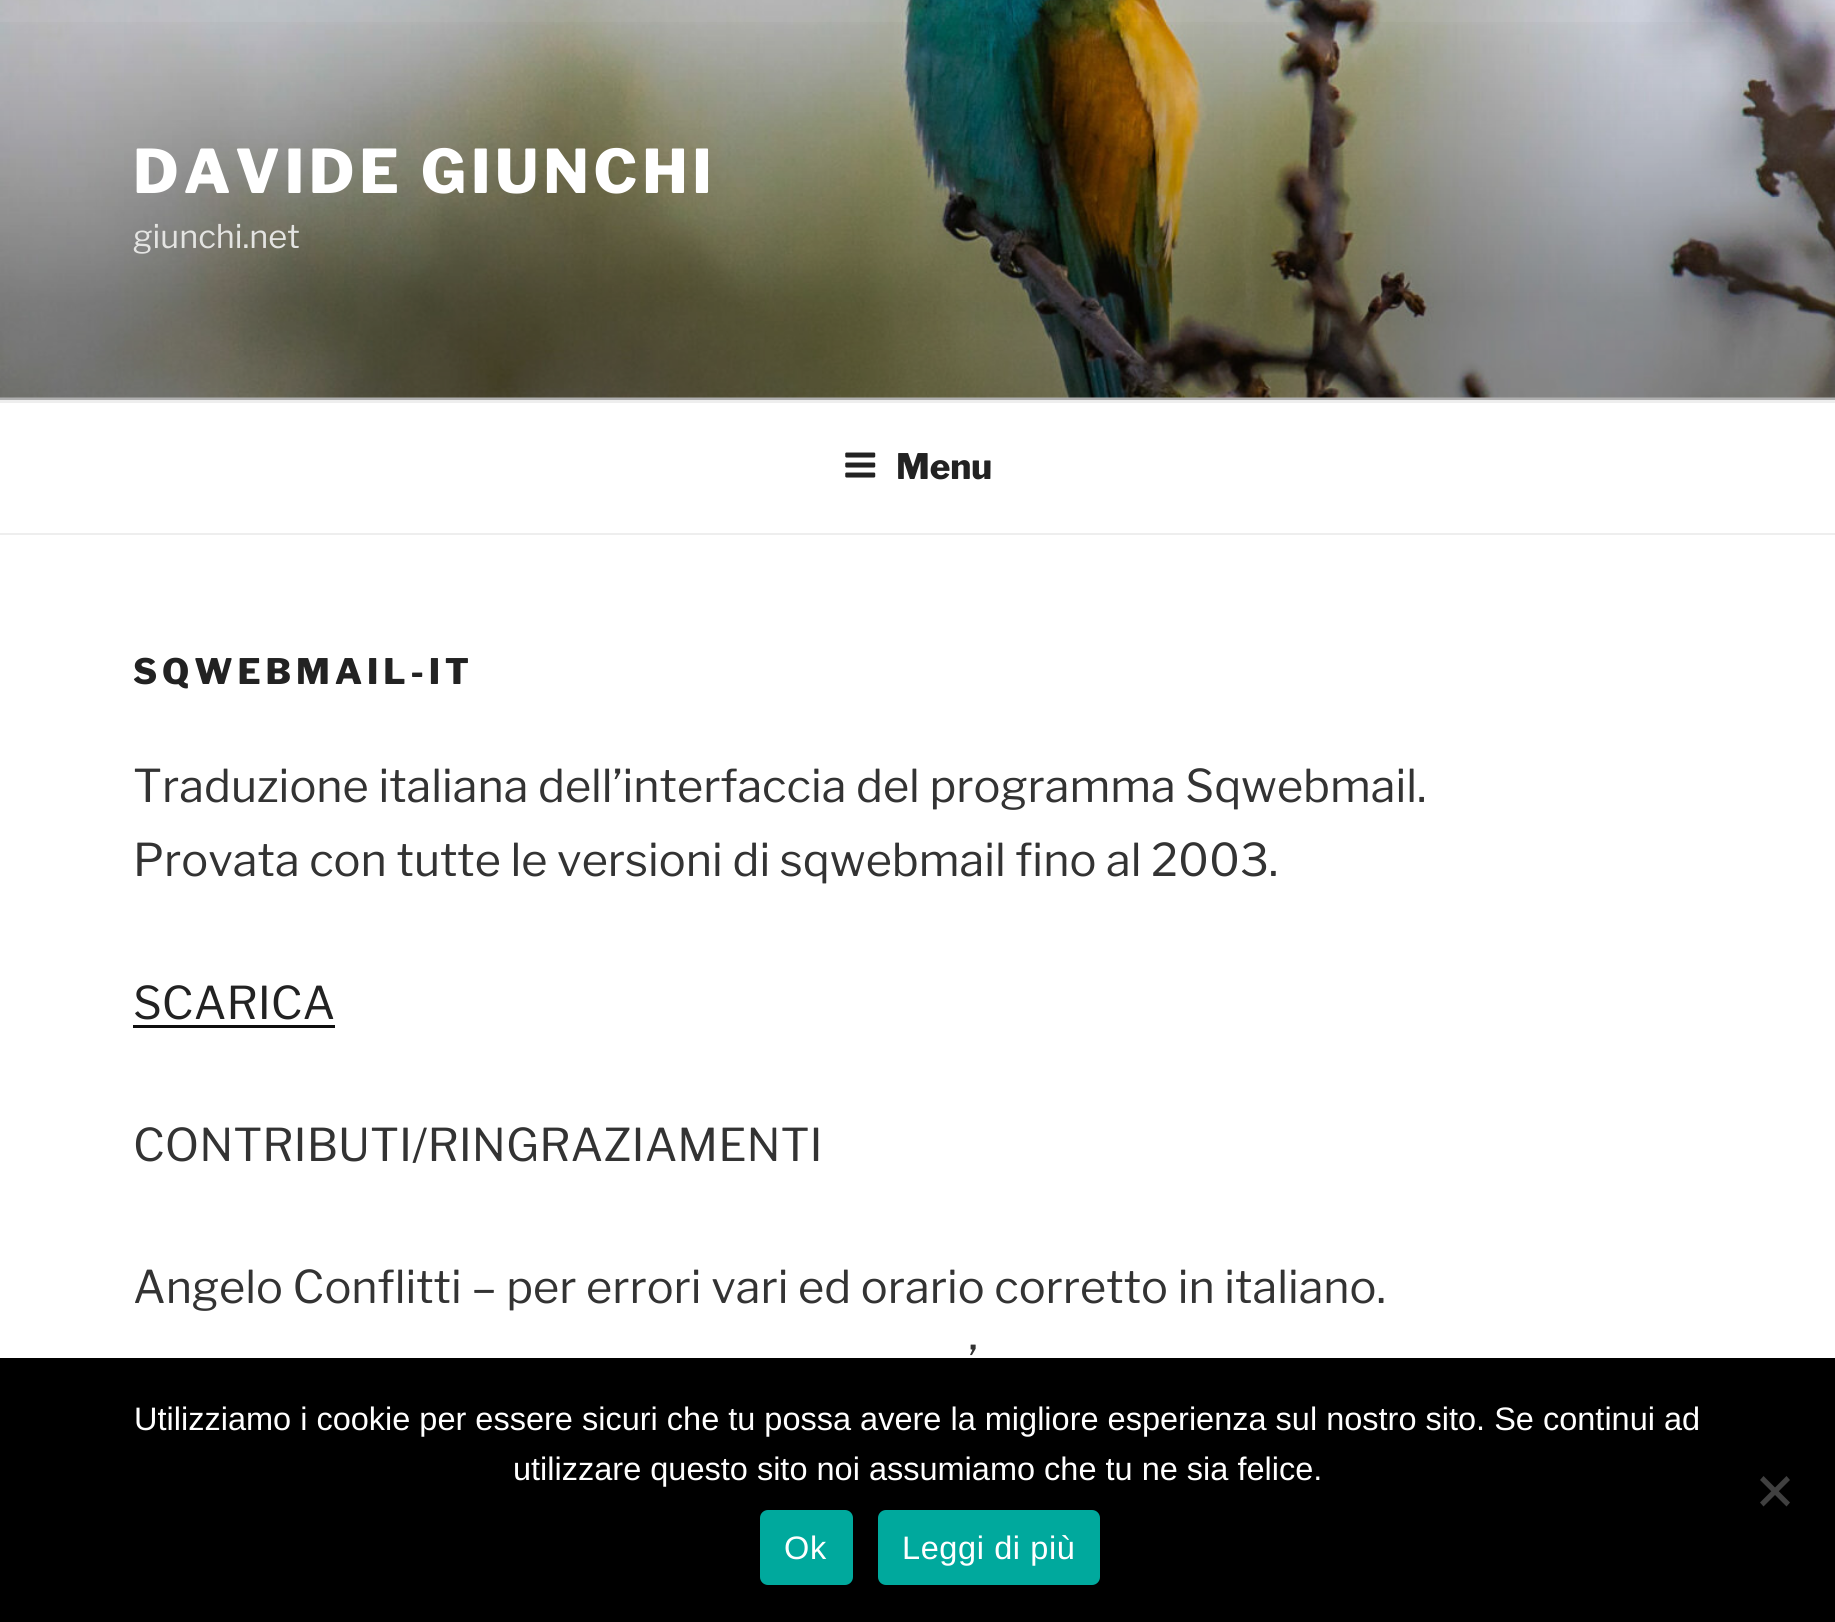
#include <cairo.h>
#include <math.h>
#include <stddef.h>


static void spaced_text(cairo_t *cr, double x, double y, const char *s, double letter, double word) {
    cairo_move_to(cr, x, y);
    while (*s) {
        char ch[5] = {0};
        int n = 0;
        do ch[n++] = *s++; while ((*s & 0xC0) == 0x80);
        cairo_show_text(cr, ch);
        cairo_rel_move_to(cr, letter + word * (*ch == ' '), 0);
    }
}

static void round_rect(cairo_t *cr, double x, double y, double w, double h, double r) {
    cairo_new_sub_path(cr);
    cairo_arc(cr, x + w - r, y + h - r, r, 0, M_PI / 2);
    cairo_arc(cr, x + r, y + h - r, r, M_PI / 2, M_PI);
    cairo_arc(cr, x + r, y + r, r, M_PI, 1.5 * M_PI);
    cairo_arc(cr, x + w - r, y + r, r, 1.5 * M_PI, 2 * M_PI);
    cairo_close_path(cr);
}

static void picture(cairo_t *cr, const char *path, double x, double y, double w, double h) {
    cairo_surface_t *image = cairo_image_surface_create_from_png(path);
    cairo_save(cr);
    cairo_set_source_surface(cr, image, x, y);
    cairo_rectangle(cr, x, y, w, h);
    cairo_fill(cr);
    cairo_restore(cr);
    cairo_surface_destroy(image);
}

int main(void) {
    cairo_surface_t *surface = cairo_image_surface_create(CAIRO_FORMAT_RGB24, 1835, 1622);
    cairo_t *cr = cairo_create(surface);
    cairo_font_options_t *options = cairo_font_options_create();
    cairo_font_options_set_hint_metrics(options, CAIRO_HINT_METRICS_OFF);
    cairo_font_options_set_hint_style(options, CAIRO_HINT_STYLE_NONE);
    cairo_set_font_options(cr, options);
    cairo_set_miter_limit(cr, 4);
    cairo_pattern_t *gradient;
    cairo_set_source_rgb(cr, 0.98, 0.98, 0.98);
    cairo_paint(cr);
    picture(cr, "img1.png", 0, 0, 1835, 398);
    gradient = cairo_pattern_create_linear(918, 0, 918, 400);
    cairo_pattern_add_color_stop_rgba(gradient, 0, 0, 0, 0, 0);
    cairo_pattern_add_color_stop_rgba(gradient, 0.75, 0, 0, 0, 0.3);
    cairo_pattern_add_color_stop_rgba(gradient, 1, 0, 0, 0, 0.3);
    cairo_set_source(cr, gradient);
    cairo_pattern_destroy(gradient);
    cairo_rectangle(cr, 0, 22, 1835, 378);
    cairo_fill(cr);
    cairo_select_font_face(cr, "Libre Franklin ExtraBold", CAIRO_FONT_SLANT_NORMAL, CAIRO_FONT_WEIGHT_NORMAL);
    cairo_set_font_size(cr, 60);
    cairo_set_source_rgb(cr, 1, 1, 1);
    spaced_text(cr, 133, 193, "DAVIDE GIUNCHI", 4.75, 0);
    cairo_select_font_face(cr, "Libre Franklin", CAIRO_FONT_SLANT_NORMAL, CAIRO_FONT_WEIGHT_NORMAL);
    cairo_set_font_size(cr, 32.5);
    cairo_set_source_rgb(cr, 0.894, 0.894, 0.886);
    cairo_move_to(cr, 133, 248);
    cairo_show_text(cr, "giunchi.net");
    cairo_set_source_rgb(cr, 1, 1, 1);
    cairo_rectangle(cr, 0, 403, 1835, 130);
    cairo_fill(cr);
    cairo_set_source_rgb(cr, 0.933, 0.933, 0.933);
    cairo_rectangle(cr, 0, 400, 1835, 3);
    cairo_fill(cr);
    cairo_rectangle(cr, 0, 533, 1835, 2);
    cairo_fill(cr);
    picture(cr, "img2.png", 845, 452, 31, 26);
    cairo_select_font_face(cr, "Libre Franklin ExtraBold", CAIRO_FONT_SLANT_NORMAL, CAIRO_FONT_WEIGHT_NORMAL);
    cairo_set_font_size(cr, 35);
    cairo_set_source_rgb(cr, 0.133, 0.133, 0.133);
    cairo_move_to(cr, 896, 479);
    cairo_show_text(cr, "Menu");
    cairo_set_source_rgb(cr, 1, 1, 1);
    cairo_rectangle(cr, 0, 535, 1835, 823);
    cairo_fill(cr);
    cairo_set_source_rgb(cr, 0.133, 0.133, 0.133);
    spaced_text(cr, 133, 684, "SQWEBMAIL-IT", 4.9, 0);
    cairo_select_font_face(cr, "Libre Franklin", CAIRO_FONT_SLANT_NORMAL, CAIRO_FONT_WEIGHT_NORMAL);
    cairo_set_font_size(cr, 45);
    cairo_set_source_rgb(cr, 0.2, 0.2, 0.2);
    cairo_move_to(cr, 133, 802);
    cairo_show_text(cr, "Traduzione italiana dell’interfaccia del programma Sqwebmail.");
    cairo_move_to(cr, 133, 876);
    cairo_show_text(cr, "Provata con tutte le versioni di sqwebmail fino al 2003.");
    cairo_set_source_rgb(cr, 0.133, 0.133, 0.133);
    cairo_move_to(cr, 133, 1019);
    cairo_show_text(cr, "SCARICA");
    cairo_set_source_rgb(cr, 0.059, 0.059, 0.059);
    cairo_rectangle(cr, 133, 1025, 202, 3);
    cairo_fill(cr);
    cairo_set_source_rgb(cr, 0.2, 0.2, 0.2);
    cairo_move_to(cr, 133, 1161);
    cairo_show_text(cr, "CONTRIBUTI/RINGRAZIAMENTI");
    cairo_move_to(cr, 133, 1303);
    cairo_show_text(cr, "Angelo Conflitti – per errori vari ed orario corretto in italiano.");
    cairo_move_to(cr, 968, 1378);
    cairo_show_text(cr, "’");
    cairo_set_source_rgb(cr, 0, 0, 0);
    cairo_rectangle(cr, 0, 1358, 1835, 264);
    cairo_fill(cr);
    cairo_select_font_face(cr, "Liberation Sans", CAIRO_FONT_SLANT_NORMAL, CAIRO_FONT_WEIGHT_NORMAL);
    cairo_set_font_size(cr, 32.5);
    cairo_set_source_rgb(cr, 1, 1, 1);
    cairo_move_to(cr, 134, 1430);
    cairo_show_text(cr, "Utilizziamo i cookie per essere sicuri che tu possa avere la migliore esperienza sul nostro sito. Se continui ad");
    cairo_move_to(cr, 513, 1480);
    cairo_show_text(cr, "utilizzare questo sito noi assumiamo che tu ne sia felice.");
    cairo_set_source_rgb(cr, 0.251, 0.251, 0.251);
    cairo_new_path(cr);
    cairo_move_to(cr, 1786.5, 1476);
    cairo_line_to(cr, 1790, 1480);
    cairo_line_to(cr, 1763.5, 1506.5);
    cairo_line_to(cr, 1760, 1502.5);
    cairo_close_path(cr);
    cairo_fill(cr);
    cairo_new_path(cr);
    cairo_move_to(cr, 1760, 1480);
    cairo_line_to(cr, 1763.5, 1476);
    cairo_line_to(cr, 1790, 1502.5);
    cairo_line_to(cr, 1786.5, 1506.5);
    cairo_close_path(cr);
    cairo_fill(cr);
    cairo_set_source_rgb(cr, 0, 0.663, 0.616);
    round_rect(cr, 760, 1510, 93, 75, 8);
    cairo_fill(cr);
    cairo_set_source_rgb(cr, 1, 1, 1);
    spaced_text(cr, 784, 1559, "Ok", 0.6, 0);
    cairo_set_source_rgb(cr, 0, 0.663, 0.616);
    round_rect(cr, 878, 1510, 222, 75, 8);
    cairo_fill(cr);
    cairo_set_source_rgb(cr, 1, 1, 1);
    spaced_text(cr, 902, 1559, "Leggi di più", 0.6, 0);
    cairo_surface_write_to_png(surface, "page.png");
    cairo_font_options_destroy(options);
    cairo_destroy(cr);
    cairo_surface_destroy(surface);
    return 0;
}
